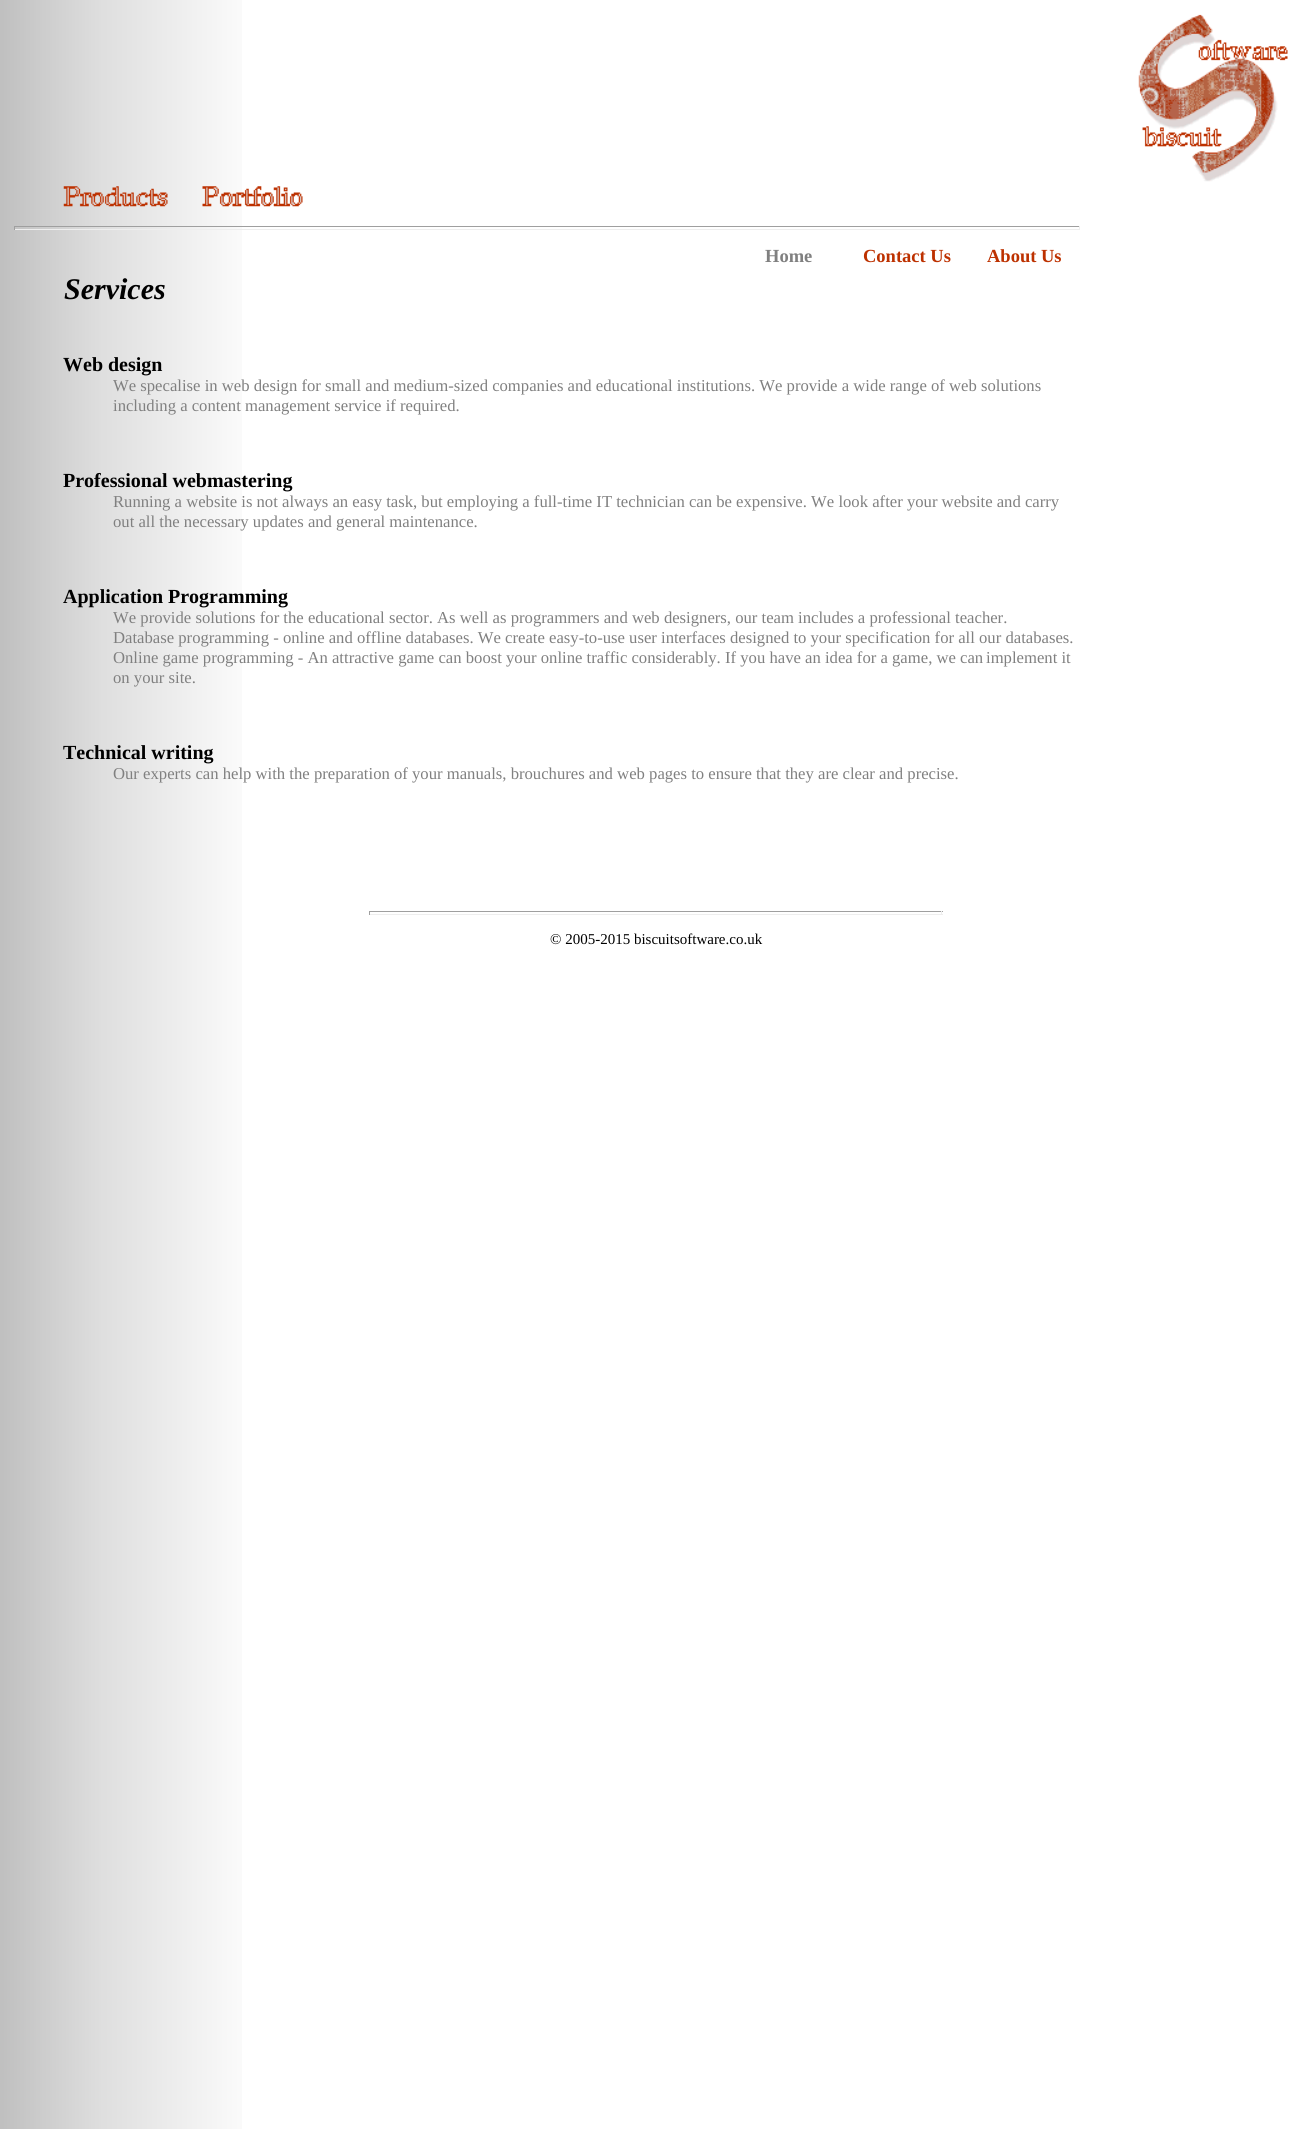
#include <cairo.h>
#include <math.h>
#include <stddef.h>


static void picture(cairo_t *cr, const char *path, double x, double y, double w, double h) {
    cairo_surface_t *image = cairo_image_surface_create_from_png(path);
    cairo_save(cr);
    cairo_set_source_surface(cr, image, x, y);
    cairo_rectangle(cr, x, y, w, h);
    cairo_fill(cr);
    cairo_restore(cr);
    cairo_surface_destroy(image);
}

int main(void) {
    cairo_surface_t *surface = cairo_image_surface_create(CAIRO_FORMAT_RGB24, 1311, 2129);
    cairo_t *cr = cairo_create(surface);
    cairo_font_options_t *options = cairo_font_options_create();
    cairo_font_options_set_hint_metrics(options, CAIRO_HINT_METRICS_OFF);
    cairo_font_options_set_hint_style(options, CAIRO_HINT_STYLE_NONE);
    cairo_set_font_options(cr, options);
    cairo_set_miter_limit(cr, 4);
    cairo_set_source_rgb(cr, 1, 1, 1);
    cairo_paint(cr);
    picture(cr, "img1.png", 0, 0, 242, 2129);
    picture(cr, "img2.png", 1138, 14, 150, 168);
    picture(cr, "img3.png", 63, 186, 105, 21);
    picture(cr, "img4.png", 202, 186, 101, 21);
    cairo_set_source_rgb(cr, 0.624, 0.624, 0.624);
    cairo_rectangle(cr, 14, 226, 1066, 1);
    cairo_fill(cr);
    cairo_set_source_rgb(cr, 0.933, 0.933, 0.933);
    cairo_rectangle(cr, 1079, 226, 1, 4);
    cairo_fill(cr);
    cairo_rectangle(cr, 14, 229, 1066, 1);
    cairo_fill(cr);
    cairo_set_source_rgb(cr, 0.624, 0.624, 0.624);
    cairo_rectangle(cr, 14, 226, 1, 4);
    cairo_fill(cr);
    cairo_select_font_face(cr, "Liberation Serif", CAIRO_FONT_SLANT_NORMAL, CAIRO_FONT_WEIGHT_BOLD);
    cairo_set_font_size(cr, 18.5);
    cairo_set_source_rgb(cr, 0.502, 0.502, 0.502);
    cairo_move_to(cr, 765, 262);
    cairo_show_text(cr, "Home");
    cairo_set_source_rgb(cr, 0.741, 0.192, 0);
    cairo_move_to(cr, 863, 262);
    cairo_show_text(cr, "Contact Us");
    cairo_move_to(cr, 987, 262);
    cairo_show_text(cr, "About Us");
    cairo_select_font_face(cr, "Liberation Serif", CAIRO_FONT_SLANT_ITALIC, CAIRO_FONT_WEIGHT_BOLD);
    cairo_set_font_size(cr, 30);
    cairo_set_source_rgb(cr, 0, 0, 0);
    cairo_move_to(cr, 64, 299);
    cairo_show_text(cr, "Services");
    cairo_select_font_face(cr, "Liberation Serif", CAIRO_FONT_SLANT_NORMAL, CAIRO_FONT_WEIGHT_BOLD);
    cairo_set_font_size(cr, 20);
    cairo_move_to(cr, 63, 371);
    cairo_show_text(cr, "Web design");
    cairo_select_font_face(cr, "Liberation Serif", CAIRO_FONT_SLANT_NORMAL, CAIRO_FONT_WEIGHT_NORMAL);
    cairo_set_font_size(cr, 16.67);
    cairo_set_source_rgb(cr, 0.502, 0.502, 0.502);
    cairo_move_to(cr, 113, 391);
    cairo_show_text(cr, "We specalise in web design for small and medium-sized companies and educational institutions. We provide a wide range of web solutions");
    cairo_move_to(cr, 113, 411);
    cairo_show_text(cr, "including a content management service if required.");
    cairo_select_font_face(cr, "Liberation Serif", CAIRO_FONT_SLANT_NORMAL, CAIRO_FONT_WEIGHT_BOLD);
    cairo_set_font_size(cr, 20);
    cairo_set_source_rgb(cr, 0, 0, 0);
    cairo_move_to(cr, 63, 487);
    cairo_show_text(cr, "Professional webmastering");
    cairo_select_font_face(cr, "Liberation Serif", CAIRO_FONT_SLANT_NORMAL, CAIRO_FONT_WEIGHT_NORMAL);
    cairo_set_font_size(cr, 16.67);
    cairo_set_source_rgb(cr, 0.502, 0.502, 0.502);
    cairo_move_to(cr, 113, 507);
    cairo_show_text(cr, "Running a website is not always an easy task, but employing a full-time IT technician can be expensive. We look after your website and carry");
    cairo_move_to(cr, 113, 527);
    cairo_show_text(cr, "out all the necessary updates and general maintenance.");
    cairo_select_font_face(cr, "Liberation Serif", CAIRO_FONT_SLANT_NORMAL, CAIRO_FONT_WEIGHT_BOLD);
    cairo_set_font_size(cr, 20);
    cairo_set_source_rgb(cr, 0, 0, 0);
    cairo_move_to(cr, 63, 603);
    cairo_show_text(cr, "Application Programming");
    cairo_select_font_face(cr, "Liberation Serif", CAIRO_FONT_SLANT_NORMAL, CAIRO_FONT_WEIGHT_NORMAL);
    cairo_set_font_size(cr, 16.67);
    cairo_set_source_rgb(cr, 0.502, 0.502, 0.502);
    cairo_move_to(cr, 113, 623);
    cairo_show_text(cr, "We provide solutions for the educational sector. As well as programmers and web designers, our team includes a professional teacher.");
    cairo_move_to(cr, 113, 643);
    cairo_show_text(cr, "Database programming - online and offline databases. We create easy-to-use user interfaces designed to your specification for all our databases.");
    cairo_move_to(cr, 113, 663);
    cairo_show_text(cr, "Online game programming - An attractive game can boost your online traffic considerably. If you have an idea for a game, we can");
    cairo_move_to(cr, 986, 663);
    cairo_show_text(cr, "implement it");
    cairo_move_to(cr, 113, 683);
    cairo_show_text(cr, "on your site.");
    cairo_select_font_face(cr, "Liberation Serif", CAIRO_FONT_SLANT_NORMAL, CAIRO_FONT_WEIGHT_BOLD);
    cairo_set_font_size(cr, 20);
    cairo_set_source_rgb(cr, 0, 0, 0);
    cairo_move_to(cr, 63, 759);
    cairo_show_text(cr, "Technical writing");
    cairo_select_font_face(cr, "Liberation Serif", CAIRO_FONT_SLANT_NORMAL, CAIRO_FONT_WEIGHT_NORMAL);
    cairo_set_font_size(cr, 16.67);
    cairo_set_source_rgb(cr, 0.502, 0.502, 0.502);
    cairo_move_to(cr, 113, 779);
    cairo_show_text(cr, "Our experts can help with the preparation of your manuals, brouchures and web pages to ensure that they are clear and precise.");
    cairo_set_source_rgb(cr, 0.624, 0.624, 0.624);
    cairo_rectangle(cr, 369, 911, 574, 1);
    cairo_fill(cr);
    cairo_set_source_rgb(cr, 0.933, 0.933, 0.933);
    cairo_rectangle(cr, 941, 911, 1, 4);
    cairo_fill(cr);
    cairo_rectangle(cr, 369, 914, 574, 1);
    cairo_fill(cr);
    cairo_set_source_rgb(cr, 0.624, 0.624, 0.624);
    cairo_rectangle(cr, 369, 911, 1, 4);
    cairo_fill(cr);
    cairo_set_font_size(cr, 15);
    cairo_set_source_rgb(cr, 0, 0, 0);
    cairo_move_to(cr, 550, 944);
    cairo_show_text(cr, "© 2005-2015 biscuitsoftware.co.uk");
    cairo_surface_write_to_png(surface, "page.png");
    cairo_font_options_destroy(options);
    cairo_destroy(cr);
    cairo_surface_destroy(surface);
    return 0;
}
